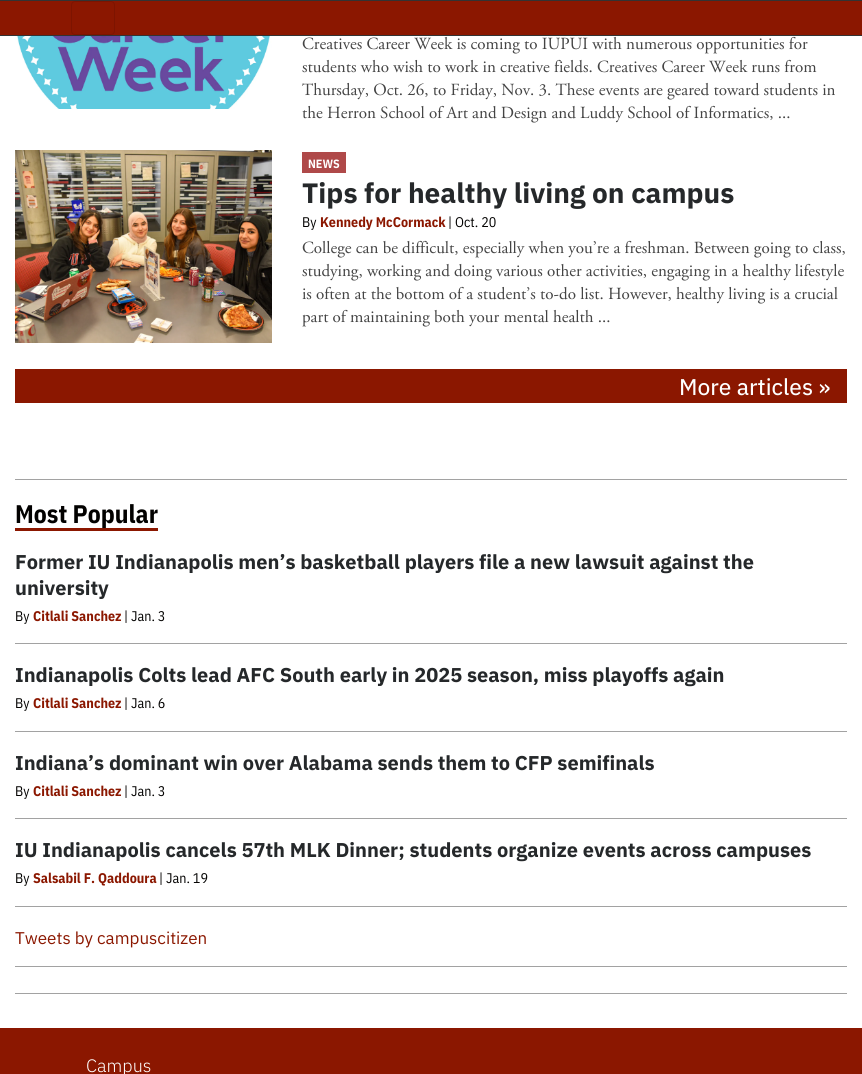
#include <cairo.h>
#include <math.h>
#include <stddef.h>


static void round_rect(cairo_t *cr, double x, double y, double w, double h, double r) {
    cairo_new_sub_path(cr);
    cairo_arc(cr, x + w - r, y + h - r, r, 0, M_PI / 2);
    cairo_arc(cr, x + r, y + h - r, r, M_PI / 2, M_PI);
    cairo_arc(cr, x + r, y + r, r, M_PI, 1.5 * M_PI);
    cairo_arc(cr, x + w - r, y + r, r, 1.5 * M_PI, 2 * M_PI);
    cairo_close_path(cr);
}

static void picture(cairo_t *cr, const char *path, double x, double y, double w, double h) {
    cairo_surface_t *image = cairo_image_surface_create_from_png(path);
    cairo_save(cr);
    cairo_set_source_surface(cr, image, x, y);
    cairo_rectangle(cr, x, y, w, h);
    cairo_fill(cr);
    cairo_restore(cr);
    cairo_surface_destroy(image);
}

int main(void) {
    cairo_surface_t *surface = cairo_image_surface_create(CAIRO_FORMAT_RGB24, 862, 1074);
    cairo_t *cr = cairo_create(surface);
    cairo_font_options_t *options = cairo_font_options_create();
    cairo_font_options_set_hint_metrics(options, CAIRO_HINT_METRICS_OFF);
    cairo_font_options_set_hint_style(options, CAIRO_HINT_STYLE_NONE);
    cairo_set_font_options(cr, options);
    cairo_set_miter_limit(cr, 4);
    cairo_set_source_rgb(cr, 1, 1, 1);
    cairo_paint(cr);
    cairo_set_source_rgb(cr, 0.545, 0.09, 0);
    cairo_rectangle(cr, 0, 1, 862, 34);
    cairo_fill(cr);
    cairo_set_source_rgb(cr, 0.2, 0.2, 0.2);
    cairo_rectangle(cr, 0, 0, 862, 1);
    cairo_fill(cr);
    cairo_rectangle(cr, 0, 35, 862, 1);
    cairo_fill(cr);
    round_rect(cr, 71.5, 1.5, 43, 33, 3.5);
    cairo_set_source_rgb(cr, 0.49, 0.082, 0);
    cairo_set_line_width(cr, 1);
    cairo_stroke(cr);
    picture(cr, "img1.png", 15, 36, 257, 73);
    cairo_select_font_face(cr, "Adobe Garamond", CAIRO_FONT_SLANT_NORMAL, CAIRO_FONT_WEIGHT_NORMAL);
    cairo_set_font_size(cr, 17);
    cairo_set_source_rgb(cr, 0.267, 0.267, 0.267);
    cairo_move_to(cr, 302, 49);
    cairo_show_text(cr, "Creatives Career Week is coming to IUPUI with numerous opportunities for");
    cairo_move_to(cr, 302, 72);
    cairo_show_text(cr, "students who wish to work in creative fields. Creatives Career Week runs from");
    cairo_move_to(cr, 302, 95);
    cairo_show_text(cr, "Thursday, Oct. 26, to Friday, Nov. 3. These events are geared toward students in");
    cairo_move_to(cr, 302, 118);
    cairo_show_text(cr, "the Herron School of Art and Design and Luddy School of Informatics, ...");
    picture(cr, "img2.png", 15, 150, 257, 193);
    cairo_set_source_rgb(cr, 0.686, 0.286, 0.286);
    cairo_rectangle(cr, 302, 152, 44, 21);
    cairo_fill(cr);
    cairo_select_font_face(cr, "IBM Plex Sans Condensed", CAIRO_FONT_SLANT_NORMAL, CAIRO_FONT_WEIGHT_BOLD);
    cairo_set_font_size(cr, 12);
    cairo_set_source_rgb(cr, 1, 1, 1);
    cairo_move_to(cr, 308, 168);
    cairo_show_text(cr, "NEWS");
    cairo_select_font_face(cr, "IBM Plex Sans", CAIRO_FONT_SLANT_NORMAL, CAIRO_FONT_WEIGHT_BOLD);
    cairo_set_font_size(cr, 28);
    cairo_set_source_rgb(cr, 0.145, 0.157, 0.165);
    cairo_move_to(cr, 302, 203);
    cairo_show_text(cr, "Tips for healthy living on campus");
    cairo_select_font_face(cr, "IBM Plex Sans Condensed", CAIRO_FONT_SLANT_NORMAL, CAIRO_FONT_WEIGHT_NORMAL);
    cairo_set_font_size(cr, 14);
    cairo_set_source_rgb(cr, 0.008, 0.004, 0);
    cairo_move_to(cr, 302, 227);
    cairo_show_text(cr, "By");
    cairo_select_font_face(cr, "IBM Plex Sans Condensed", CAIRO_FONT_SLANT_NORMAL, CAIRO_FONT_WEIGHT_BOLD);
    cairo_set_source_rgb(cr, 0.545, 0.09, 0);
    cairo_move_to(cr, 320, 227);
    cairo_show_text(cr, "Kennedy McCormack");
    cairo_select_font_face(cr, "IBM Plex Sans Condensed", CAIRO_FONT_SLANT_NORMAL, CAIRO_FONT_WEIGHT_NORMAL);
    cairo_set_source_rgb(cr, 0.008, 0.004, 0);
    cairo_move_to(cr, 448, 227);
    cairo_show_text(cr, "| Oct. 20");
    cairo_select_font_face(cr, "Adobe Garamond", CAIRO_FONT_SLANT_NORMAL, CAIRO_FONT_WEIGHT_NORMAL);
    cairo_set_font_size(cr, 17);
    cairo_set_source_rgb(cr, 0.267, 0.267, 0.267);
    cairo_move_to(cr, 302, 253);
    cairo_show_text(cr, "College can be difficult, especially when you’re a freshman. Between going to class,");
    cairo_move_to(cr, 302, 276);
    cairo_show_text(cr, "studying, working and doing various other activities, engaging in a healthy lifestyle");
    cairo_move_to(cr, 302, 299);
    cairo_show_text(cr, "is often at the bottom of a student’s to-do list. However, healthy living is a crucial");
    cairo_move_to(cr, 302, 322);
    cairo_show_text(cr, "part of maintaining both your mental health ...");
    cairo_set_source_rgb(cr, 0.545, 0.09, 0);
    cairo_rectangle(cr, 15, 369, 832, 34);
    cairo_fill(cr);
    cairo_select_font_face(cr, "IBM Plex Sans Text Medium", CAIRO_FONT_SLANT_NORMAL, CAIRO_FONT_WEIGHT_NORMAL);
    cairo_set_font_size(cr, 22.75);
    cairo_set_source_rgb(cr, 1, 1, 1);
    cairo_move_to(cr, 679, 395);
    cairo_show_text(cr, "More articles »");
    cairo_set_source_rgb(cr, 0.635, 0.635, 0.635);
    cairo_rectangle(cr, 15, 479, 832, 1);
    cairo_fill(cr);
    cairo_set_source_rgb(cr, 0.545, 0.09, 0);
    cairo_rectangle(cr, 15, 528, 143, 3);
    cairo_fill(cr);
    cairo_select_font_face(cr, "IBM Plex Sans Condensed", CAIRO_FONT_SLANT_NORMAL, CAIRO_FONT_WEIGHT_BOLD);
    cairo_set_font_size(cr, 25.5);
    cairo_set_source_rgb(cr, 0.008, 0.004, 0);
    cairo_move_to(cr, 15, 523);
    cairo_show_text(cr, "Most Popular");
    cairo_select_font_face(cr, "IBM Plex Sans", CAIRO_FONT_SLANT_NORMAL, CAIRO_FONT_WEIGHT_BOLD);
    cairo_set_font_size(cr, 20);
    cairo_set_source_rgb(cr, 0.145, 0.157, 0.165);
    cairo_move_to(cr, 15, 569);
    cairo_show_text(cr, "Former IU Indianapolis men’s basketball players file a new lawsuit against the");
    cairo_move_to(cr, 15, 595);
    cairo_show_text(cr, "university");
    cairo_select_font_face(cr, "IBM Plex Sans Condensed", CAIRO_FONT_SLANT_NORMAL, CAIRO_FONT_WEIGHT_NORMAL);
    cairo_set_font_size(cr, 14);
    cairo_set_source_rgb(cr, 0.008, 0.004, 0);
    cairo_move_to(cr, 15, 621);
    cairo_show_text(cr, "By");
    cairo_select_font_face(cr, "IBM Plex Sans Condensed", CAIRO_FONT_SLANT_NORMAL, CAIRO_FONT_WEIGHT_BOLD);
    cairo_set_source_rgb(cr, 0.545, 0.09, 0);
    cairo_move_to(cr, 33, 621);
    cairo_show_text(cr, "Citlali Sanchez");
    cairo_select_font_face(cr, "IBM Plex Sans Condensed", CAIRO_FONT_SLANT_NORMAL, CAIRO_FONT_WEIGHT_NORMAL);
    cairo_set_source_rgb(cr, 0.008, 0.004, 0);
    cairo_move_to(cr, 124, 621);
    cairo_show_text(cr, "| Jan. 3");
    cairo_set_source_rgb(cr, 0.635, 0.635, 0.635);
    cairo_rectangle(cr, 15, 643, 832, 1);
    cairo_fill(cr);
    cairo_select_font_face(cr, "IBM Plex Sans", CAIRO_FONT_SLANT_NORMAL, CAIRO_FONT_WEIGHT_BOLD);
    cairo_set_font_size(cr, 20);
    cairo_set_source_rgb(cr, 0.145, 0.157, 0.165);
    cairo_move_to(cr, 15, 682);
    cairo_show_text(cr, "Indianapolis Colts lead AFC South early in 2025 season, miss playoffs again");
    cairo_select_font_face(cr, "IBM Plex Sans Condensed", CAIRO_FONT_SLANT_NORMAL, CAIRO_FONT_WEIGHT_NORMAL);
    cairo_set_font_size(cr, 14);
    cairo_set_source_rgb(cr, 0.008, 0.004, 0);
    cairo_move_to(cr, 15, 708);
    cairo_show_text(cr, "By");
    cairo_select_font_face(cr, "IBM Plex Sans Condensed", CAIRO_FONT_SLANT_NORMAL, CAIRO_FONT_WEIGHT_BOLD);
    cairo_set_source_rgb(cr, 0.545, 0.09, 0);
    cairo_move_to(cr, 33, 708);
    cairo_show_text(cr, "Citlali Sanchez");
    cairo_select_font_face(cr, "IBM Plex Sans Condensed", CAIRO_FONT_SLANT_NORMAL, CAIRO_FONT_WEIGHT_NORMAL);
    cairo_set_source_rgb(cr, 0.008, 0.004, 0);
    cairo_move_to(cr, 124, 708);
    cairo_show_text(cr, "| Jan. 6");
    cairo_set_source_rgb(cr, 0.635, 0.635, 0.635);
    cairo_rectangle(cr, 15, 731, 832, 1);
    cairo_fill(cr);
    cairo_select_font_face(cr, "IBM Plex Sans", CAIRO_FONT_SLANT_NORMAL, CAIRO_FONT_WEIGHT_BOLD);
    cairo_set_font_size(cr, 20);
    cairo_set_source_rgb(cr, 0.145, 0.157, 0.165);
    cairo_move_to(cr, 15, 770);
    cairo_show_text(cr, "Indiana’s dominant win over Alabama sends them to CFP semifinals");
    cairo_select_font_face(cr, "IBM Plex Sans Condensed", CAIRO_FONT_SLANT_NORMAL, CAIRO_FONT_WEIGHT_NORMAL);
    cairo_set_font_size(cr, 14);
    cairo_set_source_rgb(cr, 0.008, 0.004, 0);
    cairo_move_to(cr, 15, 796);
    cairo_show_text(cr, "By");
    cairo_select_font_face(cr, "IBM Plex Sans Condensed", CAIRO_FONT_SLANT_NORMAL, CAIRO_FONT_WEIGHT_BOLD);
    cairo_set_source_rgb(cr, 0.545, 0.09, 0);
    cairo_move_to(cr, 33, 796);
    cairo_show_text(cr, "Citlali Sanchez");
    cairo_select_font_face(cr, "IBM Plex Sans Condensed", CAIRO_FONT_SLANT_NORMAL, CAIRO_FONT_WEIGHT_NORMAL);
    cairo_set_source_rgb(cr, 0.008, 0.004, 0);
    cairo_move_to(cr, 124, 796);
    cairo_show_text(cr, "| Jan. 3");
    cairo_set_source_rgb(cr, 0.635, 0.635, 0.635);
    cairo_rectangle(cr, 15, 818, 832, 1);
    cairo_fill(cr);
    cairo_select_font_face(cr, "IBM Plex Sans", CAIRO_FONT_SLANT_NORMAL, CAIRO_FONT_WEIGHT_BOLD);
    cairo_set_font_size(cr, 20);
    cairo_set_source_rgb(cr, 0.145, 0.157, 0.165);
    cairo_move_to(cr, 15, 857);
    cairo_show_text(cr, "IU Indianapolis cancels 57th MLK Dinner; students organize events across campuses");
    cairo_select_font_face(cr, "IBM Plex Sans Condensed", CAIRO_FONT_SLANT_NORMAL, CAIRO_FONT_WEIGHT_NORMAL);
    cairo_set_font_size(cr, 14);
    cairo_set_source_rgb(cr, 0.008, 0.004, 0);
    cairo_move_to(cr, 15, 883);
    cairo_show_text(cr, "By");
    cairo_select_font_face(cr, "IBM Plex Sans Condensed", CAIRO_FONT_SLANT_NORMAL, CAIRO_FONT_WEIGHT_BOLD);
    cairo_set_source_rgb(cr, 0.545, 0.09, 0);
    cairo_move_to(cr, 33, 883);
    cairo_show_text(cr, "Salsabil F. Qaddoura");
    cairo_select_font_face(cr, "IBM Plex Sans Condensed", CAIRO_FONT_SLANT_NORMAL, CAIRO_FONT_WEIGHT_NORMAL);
    cairo_set_source_rgb(cr, 0.008, 0.004, 0);
    cairo_move_to(cr, 159, 883);
    cairo_show_text(cr, "| Jan. 19");
    cairo_set_source_rgb(cr, 0.635, 0.635, 0.635);
    cairo_rectangle(cr, 15, 906, 832, 1);
    cairo_fill(cr);
    cairo_select_font_face(cr, "IBM Plex Sans", CAIRO_FONT_SLANT_NORMAL, CAIRO_FONT_WEIGHT_NORMAL);
    cairo_set_font_size(cr, 17);
    cairo_set_source_rgb(cr, 0.545, 0.09, 0);
    cairo_move_to(cr, 15, 944);
    cairo_show_text(cr, "Tweets by campuscitizen");
    cairo_set_source_rgb(cr, 0.635, 0.635, 0.635);
    cairo_rectangle(cr, 15, 966, 832, 1);
    cairo_fill(cr);
    cairo_rectangle(cr, 15, 993, 832, 1);
    cairo_fill(cr);
    cairo_set_source_rgb(cr, 0.545, 0.09, 0);
    cairo_rectangle(cr, 0, 1028, 862, 46);
    cairo_fill(cr);
    cairo_select_font_face(cr, "IBM Plex Sans Light", CAIRO_FONT_SLANT_NORMAL, CAIRO_FONT_WEIGHT_NORMAL);
    cairo_set_font_size(cr, 18);
    cairo_set_source_rgb(cr, 1, 1, 1);
    cairo_move_to(cr, 86, 1072);
    cairo_show_text(cr, "Campus");
    cairo_surface_write_to_png(surface, "page.png");
    cairo_font_options_destroy(options);
    cairo_destroy(cr);
    cairo_surface_destroy(surface);
    return 0;
}
